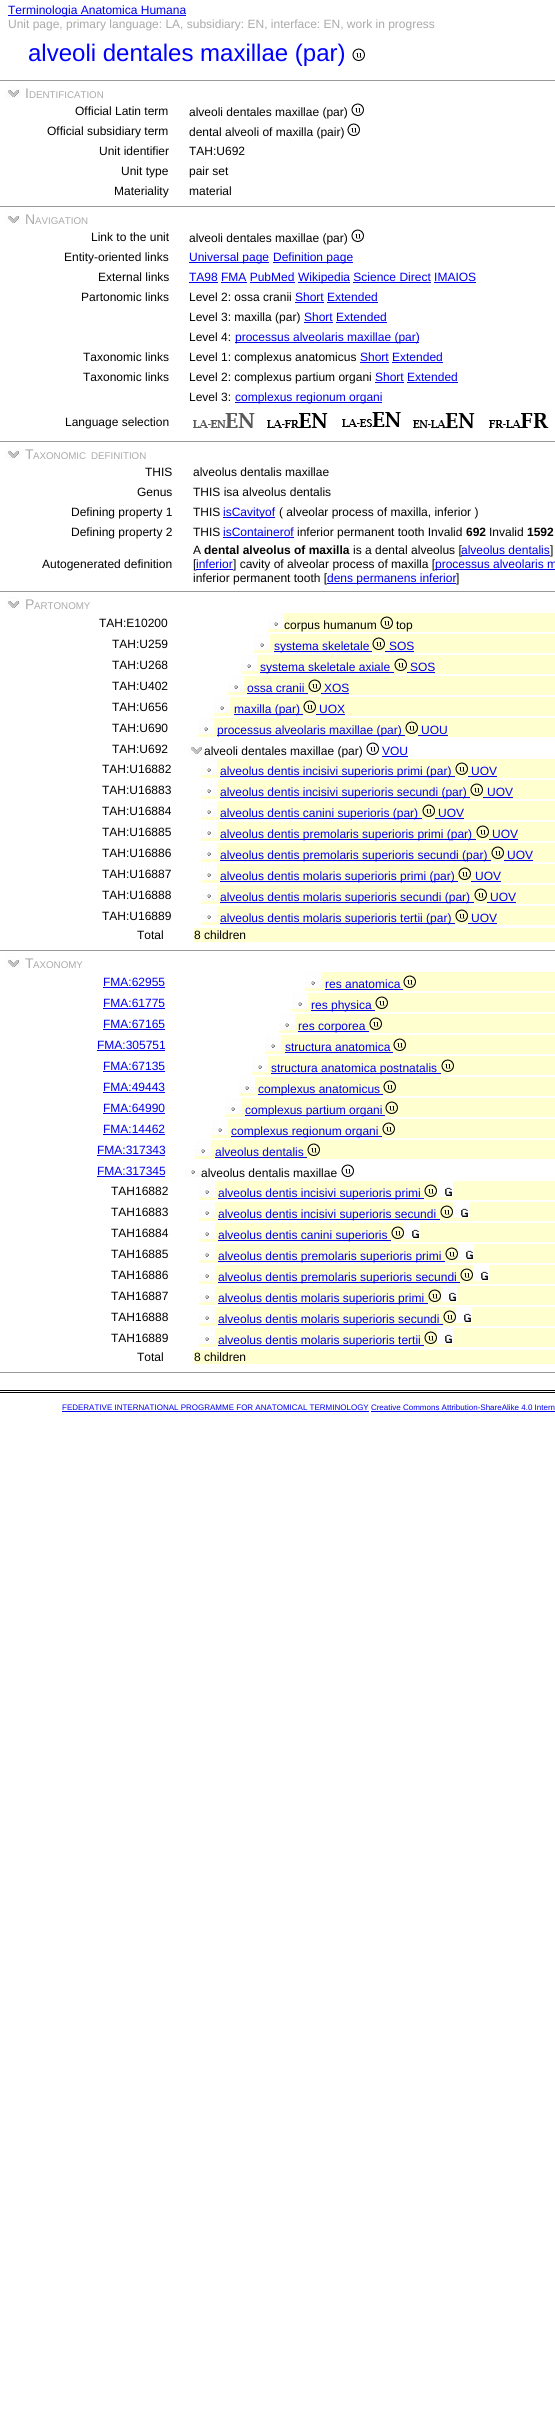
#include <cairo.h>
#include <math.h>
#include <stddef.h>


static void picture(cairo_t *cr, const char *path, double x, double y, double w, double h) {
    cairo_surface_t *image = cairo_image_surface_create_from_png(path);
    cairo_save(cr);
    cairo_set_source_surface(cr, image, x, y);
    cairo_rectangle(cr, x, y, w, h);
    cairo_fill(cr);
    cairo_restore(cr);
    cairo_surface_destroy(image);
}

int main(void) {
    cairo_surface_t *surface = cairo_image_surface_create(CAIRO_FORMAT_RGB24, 555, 2427);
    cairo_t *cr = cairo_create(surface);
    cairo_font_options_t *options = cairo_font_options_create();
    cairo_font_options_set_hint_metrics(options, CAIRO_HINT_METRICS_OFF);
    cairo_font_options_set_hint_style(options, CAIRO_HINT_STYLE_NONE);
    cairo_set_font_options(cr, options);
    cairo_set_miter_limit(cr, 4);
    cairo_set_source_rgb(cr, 1, 1, 1);
    cairo_paint(cr);
    cairo_set_source_rgb(cr, 0, 0, 0.933);
    cairo_rectangle(cr, 8, 15, 178, 1);
    cairo_fill(cr);
    cairo_select_font_face(cr, "Liberation Sans", CAIRO_FONT_SLANT_NORMAL, CAIRO_FONT_WEIGHT_NORMAL);
    cairo_set_font_size(cr, 12);
    cairo_move_to(cr, 8, 14);
    cairo_show_text(cr, "Terminologia Anatomica Humana");
    cairo_set_source_rgb(cr, 0.667, 0.667, 0.667);
    cairo_move_to(cr, 8, 28);
    cairo_show_text(cr, "Unit page, primary language: LA, subsidiary: EN, interface: EN, work in progress");
    cairo_set_font_size(cr, 24);
    cairo_set_source_rgb(cr, 0, 0, 1);
    cairo_move_to(cr, 28, 61);
    cairo_show_text(cr, "alveoli dentales maxillae (par)");
    picture(cr, "img1.png", 352, 48, 13, 13);
    cairo_set_source_rgb(cr, 0.6, 0.6, 0.6);
    cairo_rectangle(cr, 0, 80, 555, 1);
    cairo_fill(cr);
    picture(cr, "img2.png", 5, 86, 16, 12);
    cairo_set_font_size(cr, 14);
    cairo_set_source_rgb(cr, 0.667, 0.667, 0.667);
    cairo_move_to(cr, 25, 98);
    cairo_show_text(cr, "I");
    cairo_set_font_size(cr, 9.75);
    cairo_move_to(cr, 29, 98);
    cairo_show_text(cr, "DENTIFICATION");
    cairo_set_font_size(cr, 12);
    cairo_set_source_rgb(cr, 0, 0, 0);
    cairo_move_to(cr, 75, 115);
    cairo_show_text(cr, "Official Latin term");
    cairo_move_to(cr, 189, 116);
    cairo_show_text(cr, "alveoli dentales maxillae (par)");
    picture(cr, "img1.png", 351, 103, 13, 13);
    cairo_move_to(cr, 47, 135);
    cairo_show_text(cr, "Official subsidiary term");
    cairo_move_to(cr, 189, 136);
    cairo_show_text(cr, "dental alveoli of maxilla (pair)");
    picture(cr, "img1.png", 347, 123, 13, 13);
    cairo_move_to(cr, 99, 155);
    cairo_show_text(cr, "Unit identifier");
    cairo_move_to(cr, 189, 155);
    cairo_show_text(cr, "TAH:U692");
    cairo_move_to(cr, 121, 175);
    cairo_show_text(cr, "Unit type");
    cairo_move_to(cr, 189, 175);
    cairo_show_text(cr, "pair set");
    cairo_move_to(cr, 114, 195);
    cairo_show_text(cr, "Materiality");
    cairo_move_to(cr, 189, 195);
    cairo_show_text(cr, "material");
    cairo_set_source_rgb(cr, 0.6, 0.6, 0.6);
    cairo_rectangle(cr, 0, 206, 555, 1);
    cairo_fill(cr);
    picture(cr, "img2.png", 5, 212, 16, 12);
    cairo_set_font_size(cr, 14);
    cairo_set_source_rgb(cr, 0.667, 0.667, 0.667);
    cairo_move_to(cr, 25, 224);
    cairo_show_text(cr, "N");
    cairo_set_font_size(cr, 9.75);
    cairo_move_to(cr, 35, 224);
    cairo_show_text(cr, "AVIGATION");
    cairo_set_font_size(cr, 12);
    cairo_set_source_rgb(cr, 0, 0, 0);
    cairo_move_to(cr, 91, 241);
    cairo_show_text(cr, "Link to the unit");
    cairo_move_to(cr, 189, 242);
    cairo_show_text(cr, "alveoli dentales maxillae (par)");
    picture(cr, "img1.png", 351, 229, 13, 13);
    cairo_move_to(cr, 64, 261);
    cairo_show_text(cr, "Entity-oriented links");
    cairo_set_source_rgb(cr, 0, 0, 0.933);
    cairo_rectangle(cr, 189, 262, 80, 1);
    cairo_fill(cr);
    cairo_move_to(cr, 189, 261);
    cairo_show_text(cr, "Universal page");
    cairo_rectangle(cr, 273, 262, 80, 1);
    cairo_fill(cr);
    cairo_move_to(cr, 273, 261);
    cairo_show_text(cr, "Definition page");
    cairo_set_source_rgb(cr, 0, 0, 0);
    cairo_move_to(cr, 98, 281);
    cairo_show_text(cr, "External links");
    cairo_set_source_rgb(cr, 0, 0, 0.933);
    cairo_move_to(cr, 189, 281);
    cairo_show_text(cr, "TA98 FMA PubMed");
    cairo_rectangle(cr, 189, 282, 29, 1);
    cairo_fill(cr);
    cairo_rectangle(cr, 298, 282, 52, 1);
    cairo_fill(cr);
    cairo_move_to(cr, 298, 281);
    cairo_show_text(cr, "Wikipedia Science Direct IMAIOS");
    cairo_rectangle(cr, 221, 282, 26, 1);
    cairo_fill(cr);
    cairo_rectangle(cr, 250, 282, 45, 1);
    cairo_fill(cr);
    cairo_rectangle(cr, 353, 282, 78, 1);
    cairo_fill(cr);
    cairo_rectangle(cr, 434, 282, 42, 1);
    cairo_fill(cr);
    cairo_set_source_rgb(cr, 0, 0, 0);
    cairo_move_to(cr, 81, 301);
    cairo_show_text(cr, "Partonomic links");
    cairo_move_to(cr, 189, 301);
    cairo_show_text(cr, "Level 2: ossa cranii");
    cairo_set_source_rgb(cr, 0, 0, 0.933);
    cairo_move_to(cr, 295, 301);
    cairo_show_text(cr, "Short Extended");
    cairo_rectangle(cr, 295, 302, 29, 1);
    cairo_fill(cr);
    cairo_rectangle(cr, 327, 302, 51, 1);
    cairo_fill(cr);
    cairo_set_source_rgb(cr, 0, 0, 0);
    cairo_move_to(cr, 189, 321);
    cairo_show_text(cr, "Level 3: maxilla (par)");
    cairo_set_source_rgb(cr, 0, 0, 0.933);
    cairo_move_to(cr, 304, 321);
    cairo_show_text(cr, "Short Extended");
    cairo_rectangle(cr, 304, 322, 29, 1);
    cairo_fill(cr);
    cairo_rectangle(cr, 336, 322, 51, 1);
    cairo_fill(cr);
    cairo_set_source_rgb(cr, 0, 0, 0);
    cairo_move_to(cr, 189, 341);
    cairo_show_text(cr, "Level 4:");
    cairo_set_source_rgb(cr, 0, 0, 0.933);
    cairo_rectangle(cr, 235, 342, 184, 1);
    cairo_fill(cr);
    cairo_move_to(cr, 235, 341);
    cairo_show_text(cr, "processus alveolaris maxillae (par)");
    cairo_set_source_rgb(cr, 0, 0, 0);
    cairo_move_to(cr, 83, 361);
    cairo_show_text(cr, "Taxonomic links");
    cairo_move_to(cr, 189, 361);
    cairo_show_text(cr, "Level 1: complexus anatomicus");
    cairo_set_source_rgb(cr, 0, 0, 0.933);
    cairo_move_to(cr, 360, 361);
    cairo_show_text(cr, "Short Extended");
    cairo_rectangle(cr, 360, 362, 29, 1);
    cairo_fill(cr);
    cairo_rectangle(cr, 392, 362, 51, 1);
    cairo_fill(cr);
    cairo_set_source_rgb(cr, 0, 0, 0);
    cairo_move_to(cr, 83, 381);
    cairo_show_text(cr, "Taxonomic links");
    cairo_move_to(cr, 189, 381);
    cairo_show_text(cr, "Level 2: complexus partium organi");
    cairo_set_source_rgb(cr, 0, 0, 0.933);
    cairo_move_to(cr, 375, 381);
    cairo_show_text(cr, "Short Extended");
    cairo_rectangle(cr, 375, 382, 29, 1);
    cairo_fill(cr);
    cairo_rectangle(cr, 407, 382, 51, 1);
    cairo_fill(cr);
    cairo_set_source_rgb(cr, 0, 0, 0);
    cairo_move_to(cr, 189, 401);
    cairo_show_text(cr, "Level 3:");
    cairo_set_source_rgb(cr, 0, 0, 0.933);
    cairo_rectangle(cr, 235, 402, 147, 1);
    cairo_fill(cr);
    cairo_move_to(cr, 235, 401);
    cairo_show_text(cr, "complexus regionum organi");
    cairo_set_source_rgb(cr, 0, 0, 0);
    cairo_move_to(cr, 65, 426);
    cairo_show_text(cr, "Language selection");
    picture(cr, "img3.png", 192, 413, 63, 15);
    picture(cr, "img4.png", 267, 413, 61, 15);
    picture(cr, "img5.png", 342, 412, 59, 15);
    picture(cr, "img6.png", 413, 413, 62, 16);
    picture(cr, "img7.png", 489, 413, 60, 15);
    cairo_set_source_rgb(cr, 0.6, 0.6, 0.6);
    cairo_rectangle(cr, 0, 441, 555, 1);
    cairo_fill(cr);
    picture(cr, "img2.png", 5, 447, 16, 12);
    cairo_set_font_size(cr, 14);
    cairo_set_source_rgb(cr, 0.667, 0.667, 0.667);
    cairo_move_to(cr, 25, 459);
    cairo_show_text(cr, "T");
    cairo_set_font_size(cr, 9.75);
    cairo_move_to(cr, 33, 459);
    cairo_show_text(cr, "AXONOMIC");
    cairo_move_to(cr, 91, 459);
    cairo_show_text(cr, "DEFINITION");
    cairo_set_font_size(cr, 12);
    cairo_set_source_rgb(cr, 0, 0, 0);
    cairo_move_to(cr, 145, 476);
    cairo_show_text(cr, "THIS");
    cairo_move_to(cr, 193, 476);
    cairo_show_text(cr, "alveolus dentalis maxillae");
    cairo_move_to(cr, 137, 496);
    cairo_show_text(cr, "Genus");
    cairo_move_to(cr, 193, 496);
    cairo_show_text(cr, "THIS isa alveolus dentalis");
    cairo_move_to(cr, 71, 516);
    cairo_show_text(cr, "Defining property 1");
    cairo_move_to(cr, 193, 516);
    cairo_show_text(cr, "THIS");
    cairo_set_source_rgb(cr, 0, 0, 0.933);
    cairo_rectangle(cr, 223, 517, 52, 1);
    cairo_fill(cr);
    cairo_move_to(cr, 223, 516);
    cairo_show_text(cr, "isCavityof");
    cairo_set_source_rgb(cr, 0, 0, 0);
    cairo_move_to(cr, 279, 516);
    cairo_show_text(cr, "( alveolar process of maxilla, inferior )");
    cairo_move_to(cr, 71, 536);
    cairo_show_text(cr, "Defining property 2");
    cairo_move_to(cr, 193, 536);
    cairo_show_text(cr, "THIS");
    cairo_set_source_rgb(cr, 0, 0, 0.933);
    cairo_move_to(cr, 223, 536);
    cairo_show_text(cr, "isContainerof");
    cairo_rectangle(cr, 223, 537, 71, 1);
    cairo_fill(cr);
    cairo_set_source_rgb(cr, 0, 0, 0);
    cairo_move_to(cr, 297, 536);
    cairo_show_text(cr, "inferior permanent tooth Invalid");
    cairo_select_font_face(cr, "Liberation Sans", CAIRO_FONT_SLANT_NORMAL, CAIRO_FONT_WEIGHT_BOLD);
    cairo_move_to(cr, 466, 536);
    cairo_show_text(cr, "692");
    cairo_select_font_face(cr, "Liberation Sans", CAIRO_FONT_SLANT_NORMAL, CAIRO_FONT_WEIGHT_NORMAL);
    cairo_move_to(cr, 489, 536);
    cairo_show_text(cr, "Invalid");
    cairo_select_font_face(cr, "Liberation Sans", CAIRO_FONT_SLANT_NORMAL, CAIRO_FONT_WEIGHT_BOLD);
    cairo_move_to(cr, 527, 536);
    cairo_show_text(cr, "1592");
    cairo_select_font_face(cr, "Liberation Sans", CAIRO_FONT_SLANT_NORMAL, CAIRO_FONT_WEIGHT_NORMAL);
    cairo_move_to(cr, 42, 568);
    cairo_show_text(cr, "Autogenerated definition");
    cairo_move_to(cr, 193, 554);
    cairo_show_text(cr, "A");
    cairo_select_font_face(cr, "Liberation Sans", CAIRO_FONT_SLANT_NORMAL, CAIRO_FONT_WEIGHT_BOLD);
    cairo_move_to(cr, 204, 554);
    cairo_show_text(cr, "dental alveolus of maxilla");
    cairo_select_font_face(cr, "Liberation Sans", CAIRO_FONT_SLANT_NORMAL, CAIRO_FONT_WEIGHT_NORMAL);
    cairo_move_to(cr, 353, 554);
    cairo_show_text(cr, "is a dental alveolus [");
    cairo_set_source_rgb(cr, 0, 0, 0.933);
    cairo_move_to(cr, 461, 554);
    cairo_show_text(cr, "alveolus dentalis");
    cairo_rectangle(cr, 461, 555, 89, 1);
    cairo_fill(cr);
    cairo_set_source_rgb(cr, 0, 0, 0);
    cairo_move_to(cr, 550, 554);
    cairo_show_text(cr, "]");
    cairo_move_to(cr, 193, 568);
    cairo_show_text(cr, "[");
    cairo_set_source_rgb(cr, 0, 0, 0.933);
    cairo_move_to(cr, 196, 568);
    cairo_show_text(cr, "inferior");
    cairo_rectangle(cr, 196, 569, 37, 1);
    cairo_fill(cr);
    cairo_set_source_rgb(cr, 0, 0, 0);
    cairo_move_to(cr, 233, 568);
    cairo_show_text(cr, "] cavity of alveolar process of maxilla [");
    cairo_set_source_rgb(cr, 0, 0, 0.933);
    cairo_rectangle(cr, 435, 569, 120, 1);
    cairo_fill(cr);
    cairo_move_to(cr, 435, 568);
    cairo_show_text(cr, "processus alveolaris m");
    cairo_set_source_rgb(cr, 0, 0, 0);
    cairo_move_to(cr, 193, 582);
    cairo_show_text(cr, "inferior permanent tooth [");
    cairo_set_source_rgb(cr, 0, 0, 0.933);
    cairo_rectangle(cr, 327, 583, 129, 1);
    cairo_fill(cr);
    cairo_move_to(cr, 327, 582);
    cairo_show_text(cr, "dens permanens inferior");
    cairo_set_source_rgb(cr, 0, 0, 0);
    cairo_move_to(cr, 456, 582);
    cairo_show_text(cr, "]");
    cairo_set_source_rgb(cr, 0.6, 0.6, 0.6);
    cairo_rectangle(cr, 0, 591, 555, 1);
    cairo_fill(cr);
    picture(cr, "img2.png", 5, 597, 16, 12);
    cairo_set_font_size(cr, 14);
    cairo_set_source_rgb(cr, 0.667, 0.667, 0.667);
    cairo_move_to(cr, 25, 609);
    cairo_show_text(cr, "P");
    cairo_set_font_size(cr, 9.75);
    cairo_move_to(cr, 34, 609);
    cairo_show_text(cr, "ARTONOMY");
    cairo_set_font_size(cr, 12);
    cairo_set_source_rgb(cr, 0, 0, 0);
    cairo_move_to(cr, 99, 627);
    cairo_show_text(cr, "TAH:E10200");
    cairo_set_source_rgb(cr, 1, 1, 0.816);
    cairo_rectangle(cr, 268, 613, 287, 19);
    cairo_fill(cr);
    picture(cr, "img8.png", 268, 613, 16, 16);
    cairo_set_source_rgb(cr, 0, 0, 0);
    cairo_move_to(cr, 284, 629);
    cairo_show_text(cr, "corpus humanum");
    picture(cr, "img9.png", 380, 616, 13, 13);
    cairo_move_to(cr, 396, 629);
    cairo_show_text(cr, "top");
    cairo_move_to(cr, 112, 648);
    cairo_show_text(cr, "TAH:U259");
    cairo_set_source_rgb(cr, 1, 1, 0.816);
    cairo_rectangle(cr, 254, 634, 301, 19);
    cairo_fill(cr);
    picture(cr, "img8.png", 254, 634, 16, 16);
    cairo_set_source_rgb(cr, 0, 0, 0.933);
    cairo_rectangle(cr, 274, 651, 98, 1);
    cairo_fill(cr);
    cairo_move_to(cr, 274, 650);
    cairo_show_text(cr, "systema skeletale");
    cairo_rectangle(cr, 385, 651, 29, 1);
    cairo_fill(cr);
    picture(cr, "img9.png", 372, 637, 13, 13);
    cairo_move_to(cr, 389, 650);
    cairo_show_text(cr, "SOS");
    cairo_set_source_rgb(cr, 0, 0, 0);
    cairo_move_to(cr, 112, 669);
    cairo_show_text(cr, "TAH:U268");
    cairo_set_source_rgb(cr, 1, 1, 0.816);
    cairo_rectangle(cr, 241, 655, 314, 19);
    cairo_fill(cr);
    picture(cr, "img8.png", 241, 655, 16, 16);
    cairo_set_source_rgb(cr, 0, 0, 0.933);
    cairo_rectangle(cr, 260, 672, 134, 1);
    cairo_fill(cr);
    cairo_move_to(cr, 260, 671);
    cairo_show_text(cr, "systema skeletale axiale");
    cairo_rectangle(cr, 407, 672, 28, 1);
    cairo_fill(cr);
    picture(cr, "img9.png", 394, 658, 13, 13);
    cairo_move_to(cr, 410, 671);
    cairo_show_text(cr, "SOS");
    cairo_set_source_rgb(cr, 0, 0, 0);
    cairo_move_to(cr, 112, 690);
    cairo_show_text(cr, "TAH:U402");
    cairo_set_source_rgb(cr, 1, 1, 0.816);
    cairo_rectangle(cr, 228, 676, 327, 19);
    cairo_fill(cr);
    picture(cr, "img8.png", 228, 676, 16, 16);
    cairo_set_source_rgb(cr, 0, 0, 0.933);
    cairo_move_to(cr, 247, 692);
    cairo_show_text(cr, "ossa cranii");
    cairo_rectangle(cr, 247, 693, 61, 1);
    cairo_fill(cr);
    cairo_rectangle(cr, 321, 693, 28, 1);
    cairo_fill(cr);
    picture(cr, "img9.png", 308, 679, 13, 13);
    cairo_move_to(cr, 324, 692);
    cairo_show_text(cr, "XOS");
    cairo_set_source_rgb(cr, 0, 0, 0);
    cairo_move_to(cr, 112, 711);
    cairo_show_text(cr, "TAH:U656");
    cairo_set_source_rgb(cr, 1, 1, 0.816);
    cairo_rectangle(cr, 214, 697, 341, 19);
    cairo_fill(cr);
    picture(cr, "img8.png", 214, 697, 16, 16);
    cairo_set_source_rgb(cr, 0, 0, 0.933);
    cairo_rectangle(cr, 234, 714, 69, 1);
    cairo_fill(cr);
    cairo_move_to(cr, 234, 713);
    cairo_show_text(cr, "maxilla (par)");
    cairo_rectangle(cr, 316, 714, 29, 1);
    cairo_fill(cr);
    picture(cr, "img9.png", 303, 700, 13, 13);
    cairo_move_to(cr, 319, 713);
    cairo_show_text(cr, "UOX");
    cairo_set_source_rgb(cr, 0, 0, 0);
    cairo_move_to(cr, 112, 732);
    cairo_show_text(cr, "TAH:U690");
    cairo_set_source_rgb(cr, 1, 1, 0.816);
    cairo_rectangle(cr, 198, 718, 357, 19);
    cairo_fill(cr);
    picture(cr, "img8.png", 198, 718, 16, 16);
    cairo_set_source_rgb(cr, 0, 0, 0.933);
    cairo_rectangle(cr, 217, 735, 188, 1);
    cairo_fill(cr);
    cairo_move_to(cr, 217, 734);
    cairo_show_text(cr, "processus alveolaris maxillae (par)");
    cairo_rectangle(cr, 418, 735, 30, 1);
    cairo_fill(cr);
    picture(cr, "img9.png", 405, 721, 13, 13);
    cairo_move_to(cr, 421, 734);
    cairo_show_text(cr, "UOU");
    cairo_set_source_rgb(cr, 0, 0, 0);
    cairo_move_to(cr, 112, 753);
    cairo_show_text(cr, "TAH:U692");
    picture(cr, "img2.png", 188, 743, 16, 12);
    cairo_move_to(cr, 204, 755);
    cairo_show_text(cr, "alveoli dentales maxillae (par)");
    picture(cr, "img1.png", 366, 742, 13, 13);
    cairo_set_source_rgb(cr, 0, 0, 0.933);
    cairo_move_to(cr, 382, 755);
    cairo_show_text(cr, "VOU");
    cairo_rectangle(cr, 382, 756, 26, 1);
    cairo_fill(cr);
    cairo_set_source_rgb(cr, 0, 0, 0);
    cairo_move_to(cr, 102, 773);
    cairo_show_text(cr, "TAH:U16882");
    cairo_set_source_rgb(cr, 1, 1, 0.816);
    cairo_rectangle(cr, 201, 759, 354, 19);
    cairo_fill(cr);
    picture(cr, "img8.png", 201, 759, 16, 16);
    cairo_set_source_rgb(cr, 0, 0, 0.933);
    cairo_rectangle(cr, 220, 776, 235, 1);
    cairo_fill(cr);
    cairo_move_to(cr, 220, 775);
    cairo_show_text(cr, "alveolus dentis incisivi superioris primi (par)");
    cairo_rectangle(cr, 468, 776, 29, 1);
    cairo_fill(cr);
    picture(cr, "img9.png", 455, 762, 13, 13);
    cairo_move_to(cr, 471, 775);
    cairo_show_text(cr, "UOV");
    cairo_set_source_rgb(cr, 0, 0, 0);
    cairo_move_to(cr, 102, 794);
    cairo_show_text(cr, "TAH:U16883");
    cairo_set_source_rgb(cr, 1, 1, 0.816);
    cairo_rectangle(cr, 201, 780, 354, 19);
    cairo_fill(cr);
    picture(cr, "img8.png", 201, 780, 16, 16);
    cairo_set_source_rgb(cr, 0, 0, 0.933);
    cairo_rectangle(cr, 220, 797, 250, 1);
    cairo_fill(cr);
    cairo_move_to(cr, 220, 796);
    cairo_show_text(cr, "alveolus dentis incisivi superioris secundi (par)");
    cairo_rectangle(cr, 483, 797, 30, 1);
    cairo_fill(cr);
    picture(cr, "img9.png", 470, 783, 13, 13);
    cairo_move_to(cr, 487, 796);
    cairo_show_text(cr, "UOV");
    cairo_set_source_rgb(cr, 0, 0, 0);
    cairo_move_to(cr, 102, 815);
    cairo_show_text(cr, "TAH:U16884");
    cairo_set_source_rgb(cr, 1, 1, 0.816);
    cairo_rectangle(cr, 201, 801, 354, 19);
    cairo_fill(cr);
    picture(cr, "img8.png", 201, 801, 16, 16);
    cairo_set_source_rgb(cr, 0, 0, 0.933);
    cairo_rectangle(cr, 220, 818, 202, 1);
    cairo_fill(cr);
    cairo_move_to(cr, 220, 817);
    cairo_show_text(cr, "alveolus dentis canini superioris (par)");
    cairo_rectangle(cr, 435, 818, 29, 1);
    cairo_fill(cr);
    picture(cr, "img9.png", 422, 804, 13, 13);
    cairo_move_to(cr, 438, 817);
    cairo_show_text(cr, "UOV");
    cairo_set_source_rgb(cr, 0, 0, 0);
    cairo_move_to(cr, 102, 836);
    cairo_show_text(cr, "TAH:U16885");
    cairo_set_source_rgb(cr, 1, 1, 0.816);
    cairo_rectangle(cr, 201, 822, 354, 19);
    cairo_fill(cr);
    picture(cr, "img8.png", 201, 822, 16, 16);
    cairo_set_source_rgb(cr, 0, 0, 0.933);
    cairo_rectangle(cr, 220, 839, 256, 1);
    cairo_fill(cr);
    cairo_move_to(cr, 220, 838);
    cairo_show_text(cr, "alveolus dentis premolaris superioris primi (par)");
    cairo_rectangle(cr, 489, 839, 29, 1);
    cairo_fill(cr);
    picture(cr, "img9.png", 476, 825, 13, 13);
    cairo_move_to(cr, 492, 838);
    cairo_show_text(cr, "UOV");
    cairo_set_source_rgb(cr, 0, 0, 0);
    cairo_move_to(cr, 102, 857);
    cairo_show_text(cr, "TAH:U16886");
    cairo_set_source_rgb(cr, 1, 1, 0.816);
    cairo_rectangle(cr, 201, 843, 354, 19);
    cairo_fill(cr);
    picture(cr, "img8.png", 201, 843, 16, 16);
    cairo_set_source_rgb(cr, 0, 0, 0.933);
    cairo_rectangle(cr, 220, 860, 271, 1);
    cairo_fill(cr);
    cairo_move_to(cr, 220, 859);
    cairo_show_text(cr, "alveolus dentis premolaris superioris secundi (par)");
    cairo_rectangle(cr, 504, 860, 29, 1);
    cairo_fill(cr);
    picture(cr, "img9.png", 491, 846, 13, 13);
    cairo_move_to(cr, 507, 859);
    cairo_show_text(cr, "UOV");
    cairo_set_source_rgb(cr, 0, 0, 0);
    cairo_move_to(cr, 102, 878);
    cairo_show_text(cr, "TAH:U16887");
    cairo_set_source_rgb(cr, 1, 1, 0.816);
    cairo_rectangle(cr, 201, 864, 354, 19);
    cairo_fill(cr);
    picture(cr, "img8.png", 201, 864, 16, 16);
    cairo_set_source_rgb(cr, 0, 0, 0.933);
    cairo_rectangle(cr, 220, 881, 238, 1);
    cairo_fill(cr);
    cairo_move_to(cr, 220, 880);
    cairo_show_text(cr, "alveolus dentis molaris superioris primi (par)");
    cairo_rectangle(cr, 471, 881, 30, 1);
    cairo_fill(cr);
    picture(cr, "img9.png", 458, 867, 13, 13);
    cairo_move_to(cr, 475, 880);
    cairo_show_text(cr, "UOV");
    cairo_set_source_rgb(cr, 0, 0, 0);
    cairo_move_to(cr, 102, 899);
    cairo_show_text(cr, "TAH:U16888");
    cairo_set_source_rgb(cr, 1, 1, 0.816);
    cairo_rectangle(cr, 201, 885, 354, 19);
    cairo_fill(cr);
    picture(cr, "img8.png", 201, 885, 16, 16);
    cairo_set_source_rgb(cr, 0, 0, 0.933);
    cairo_rectangle(cr, 220, 902, 254, 1);
    cairo_fill(cr);
    cairo_move_to(cr, 220, 901);
    cairo_show_text(cr, "alveolus dentis molaris superioris secundi (par)");
    cairo_rectangle(cr, 487, 902, 29, 1);
    cairo_fill(cr);
    picture(cr, "img9.png", 474, 888, 13, 13);
    cairo_move_to(cr, 490, 901);
    cairo_show_text(cr, "UOV");
    cairo_set_source_rgb(cr, 0, 0, 0);
    cairo_move_to(cr, 102, 920);
    cairo_show_text(cr, "TAH:U16889");
    cairo_set_source_rgb(cr, 1, 1, 0.816);
    cairo_rectangle(cr, 201, 906, 354, 19);
    cairo_fill(cr);
    picture(cr, "img8.png", 201, 906, 16, 16);
    cairo_set_source_rgb(cr, 0, 0, 0.933);
    cairo_rectangle(cr, 220, 923, 235, 1);
    cairo_fill(cr);
    cairo_move_to(cr, 220, 922);
    cairo_show_text(cr, "alveolus dentis molaris superioris tertii (par)");
    cairo_rectangle(cr, 468, 923, 29, 1);
    cairo_fill(cr);
    picture(cr, "img9.png", 455, 909, 13, 13);
    cairo_move_to(cr, 471, 922);
    cairo_show_text(cr, "UOV");
    cairo_set_source_rgb(cr, 0, 0, 0);
    cairo_move_to(cr, 137, 939);
    cairo_show_text(cr, "Total");
    cairo_set_source_rgb(cr, 1, 1, 0.816);
    cairo_rectangle(cr, 194, 928, 361, 14);
    cairo_fill(cr);
    cairo_set_source_rgb(cr, 0, 0, 0);
    cairo_move_to(cr, 194, 939);
    cairo_show_text(cr, "8 children");
    cairo_set_source_rgb(cr, 0.6, 0.6, 0.6);
    cairo_rectangle(cr, 0, 950, 555, 1);
    cairo_fill(cr);
    picture(cr, "img2.png", 5, 956, 16, 12);
    cairo_set_font_size(cr, 14);
    cairo_set_source_rgb(cr, 0.667, 0.667, 0.667);
    cairo_move_to(cr, 25, 968);
    cairo_show_text(cr, "T");
    cairo_set_font_size(cr, 9.75);
    cairo_move_to(cr, 33, 968);
    cairo_show_text(cr, "AXONOMY");
    cairo_set_font_size(cr, 12);
    cairo_set_source_rgb(cr, 0, 0, 0.933);
    cairo_move_to(cr, 103, 986);
    cairo_show_text(cr, "FMA:62955");
    cairo_rectangle(cr, 103, 987, 62, 1);
    cairo_fill(cr);
    cairo_set_source_rgb(cr, 1, 1, 0.816);
    cairo_rectangle(cr, 305, 972, 250, 19);
    cairo_fill(cr);
    picture(cr, "img8.png", 305, 972, 16, 16);
    cairo_set_source_rgb(cr, 0, 0, 0.933);
    cairo_move_to(cr, 325, 988);
    cairo_show_text(cr, "res anatomica");
    cairo_rectangle(cr, 325, 989, 78, 1);
    cairo_fill(cr);
    picture(cr, "img9.png", 403, 975, 13, 13);
    cairo_move_to(cr, 103, 1007);
    cairo_show_text(cr, "FMA:61775");
    cairo_rectangle(cr, 103, 1008, 62, 1);
    cairo_fill(cr);
    cairo_set_source_rgb(cr, 1, 1, 0.816);
    cairo_rectangle(cr, 292, 993, 263, 19);
    cairo_fill(cr);
    picture(cr, "img8.png", 292, 993, 16, 16);
    cairo_set_source_rgb(cr, 0, 0, 0.933);
    cairo_rectangle(cr, 311, 1010, 64, 1);
    cairo_fill(cr);
    cairo_move_to(cr, 311, 1009);
    cairo_show_text(cr, "res physica");
    picture(cr, "img9.png", 375, 996, 13, 13);
    cairo_move_to(cr, 103, 1028);
    cairo_show_text(cr, "FMA:67165");
    cairo_rectangle(cr, 103, 1029, 62, 1);
    cairo_fill(cr);
    cairo_set_source_rgb(cr, 1, 1, 0.816);
    cairo_rectangle(cr, 279, 1014, 276, 19);
    cairo_fill(cr);
    picture(cr, "img8.png", 279, 1014, 16, 16);
    cairo_set_source_rgb(cr, 0, 0, 0.933);
    cairo_rectangle(cr, 298, 1031, 71, 1);
    cairo_fill(cr);
    cairo_move_to(cr, 298, 1030);
    cairo_show_text(cr, "res corporea");
    picture(cr, "img9.png", 369, 1017, 13, 13);
    cairo_move_to(cr, 97, 1049);
    cairo_show_text(cr, "FMA:305751");
    cairo_rectangle(cr, 97, 1050, 68, 1);
    cairo_fill(cr);
    cairo_set_source_rgb(cr, 1, 1, 0.816);
    cairo_rectangle(cr, 265, 1035, 290, 19);
    cairo_fill(cr);
    picture(cr, "img8.png", 265, 1035, 16, 16);
    cairo_set_source_rgb(cr, 0, 0, 0.933);
    cairo_move_to(cr, 285, 1051);
    cairo_show_text(cr, "structura anatomica");
    cairo_rectangle(cr, 285, 1052, 108, 1);
    cairo_fill(cr);
    picture(cr, "img9.png", 393, 1038, 13, 13);
    cairo_move_to(cr, 103, 1070);
    cairo_show_text(cr, "FMA:67135");
    cairo_rectangle(cr, 103, 1071, 62, 1);
    cairo_fill(cr);
    cairo_set_source_rgb(cr, 1, 1, 0.816);
    cairo_rectangle(cr, 252, 1056, 303, 19);
    cairo_fill(cr);
    picture(cr, "img8.png", 252, 1056, 16, 16);
    cairo_set_source_rgb(cr, 0, 0, 0.933);
    cairo_rectangle(cr, 271, 1073, 170, 1);
    cairo_fill(cr);
    cairo_move_to(cr, 271, 1072);
    cairo_show_text(cr, "structura anatomica postnatalis");
    picture(cr, "img9.png", 441, 1059, 13, 13);
    cairo_move_to(cr, 103, 1091);
    cairo_show_text(cr, "FMA:49443");
    cairo_rectangle(cr, 103, 1092, 62, 1);
    cairo_fill(cr);
    cairo_set_source_rgb(cr, 1, 1, 0.816);
    cairo_rectangle(cr, 239, 1077, 316, 19);
    cairo_fill(cr);
    picture(cr, "img8.png", 239, 1077, 16, 16);
    cairo_set_source_rgb(cr, 0, 0, 0.933);
    cairo_rectangle(cr, 258, 1094, 125, 1);
    cairo_fill(cr);
    cairo_move_to(cr, 258, 1093);
    cairo_show_text(cr, "complexus anatomicus");
    picture(cr, "img9.png", 383, 1080, 13, 13);
    cairo_move_to(cr, 103, 1112);
    cairo_show_text(cr, "FMA:64990");
    cairo_rectangle(cr, 103, 1113, 62, 1);
    cairo_fill(cr);
    cairo_set_source_rgb(cr, 1, 1, 0.816);
    cairo_rectangle(cr, 225, 1098, 330, 19);
    cairo_fill(cr);
    picture(cr, "img8.png", 225, 1098, 16, 16);
    cairo_set_source_rgb(cr, 0, 0, 0.933);
    cairo_rectangle(cr, 245, 1115, 140, 1);
    cairo_fill(cr);
    cairo_move_to(cr, 245, 1114);
    cairo_show_text(cr, "complexus partium organi");
    picture(cr, "img9.png", 385, 1101, 13, 13);
    cairo_move_to(cr, 103, 1133);
    cairo_show_text(cr, "FMA:14462");
    cairo_rectangle(cr, 103, 1134, 62, 1);
    cairo_fill(cr);
    cairo_set_source_rgb(cr, 1, 1, 0.816);
    cairo_rectangle(cr, 212, 1119, 343, 19);
    cairo_fill(cr);
    picture(cr, "img8.png", 212, 1119, 16, 16);
    cairo_set_source_rgb(cr, 0, 0, 0.933);
    cairo_rectangle(cr, 231, 1136, 151, 1);
    cairo_fill(cr);
    cairo_move_to(cr, 231, 1135);
    cairo_show_text(cr, "complexus regionum organi");
    picture(cr, "img9.png", 382, 1122, 13, 13);
    cairo_move_to(cr, 97, 1154);
    cairo_show_text(cr, "FMA:317343");
    cairo_rectangle(cr, 97, 1155, 68, 1);
    cairo_fill(cr);
    cairo_set_source_rgb(cr, 1, 1, 0.816);
    cairo_rectangle(cr, 195, 1140, 360, 19);
    cairo_fill(cr);
    picture(cr, "img8.png", 195, 1140, 16, 16);
    cairo_set_source_rgb(cr, 0, 0, 0.933);
    cairo_move_to(cr, 215, 1156);
    cairo_show_text(cr, "alveolus dentalis");
    cairo_rectangle(cr, 215, 1157, 92, 1);
    cairo_fill(cr);
    picture(cr, "img9.png", 307, 1143, 13, 13);
    cairo_move_to(cr, 97, 1175);
    cairo_show_text(cr, "FMA:317345");
    cairo_rectangle(cr, 97, 1176, 68, 1);
    cairo_fill(cr);
    picture(cr, "img10.png", 185, 1169, 16, 8);
    cairo_set_source_rgb(cr, 0, 0, 0);
    cairo_move_to(cr, 201, 1177);
    cairo_show_text(cr, "alveolus dentalis maxillae");
    picture(cr, "img1.png", 341, 1164, 13, 13);
    cairo_move_to(cr, 111, 1195);
    cairo_show_text(cr, "TAH16882");
    cairo_set_source_rgb(cr, 1, 1, 0.816);
    cairo_rectangle(cr, 199, 1181, 356, 19);
    cairo_fill(cr);
    picture(cr, "img8.png", 199, 1181, 16, 16);
    cairo_set_source_rgb(cr, 0, 0, 0.933);
    cairo_rectangle(cr, 218, 1198, 206, 1);
    cairo_fill(cr);
    cairo_move_to(cr, 218, 1197);
    cairo_show_text(cr, "alveolus dentis incisivi superioris primi");
    picture(cr, "img9.png", 424, 1184, 13, 13);
    picture(cr, "img11.png", 437, 1181, 16, 16);
    cairo_set_source_rgb(cr, 0, 0, 0);
    cairo_move_to(cr, 111, 1216);
    cairo_show_text(cr, "TAH16883");
    cairo_set_source_rgb(cr, 1, 1, 0.816);
    cairo_rectangle(cr, 199, 1202, 356, 19);
    cairo_fill(cr);
    picture(cr, "img8.png", 199, 1202, 16, 16);
    cairo_set_source_rgb(cr, 0, 0, 0.933);
    cairo_rectangle(cr, 218, 1219, 222, 1);
    cairo_fill(cr);
    cairo_move_to(cr, 218, 1218);
    cairo_show_text(cr, "alveolus dentis incisivi superioris secundi");
    picture(cr, "img9.png", 440, 1205, 13, 13);
    picture(cr, "img11.png", 453, 1202, 16, 16);
    cairo_set_source_rgb(cr, 0, 0, 0);
    cairo_move_to(cr, 111, 1237);
    cairo_show_text(cr, "TAH16884");
    cairo_set_source_rgb(cr, 1, 1, 0.816);
    cairo_rectangle(cr, 199, 1223, 356, 19);
    cairo_fill(cr);
    picture(cr, "img8.png", 199, 1223, 16, 16);
    cairo_set_source_rgb(cr, 0, 0, 0.933);
    cairo_rectangle(cr, 218, 1240, 173, 1);
    cairo_fill(cr);
    cairo_move_to(cr, 218, 1239);
    cairo_show_text(cr, "alveolus dentis canini superioris");
    picture(cr, "img9.png", 391, 1226, 13, 13);
    picture(cr, "img11.png", 404, 1223, 16, 16);
    cairo_set_source_rgb(cr, 0, 0, 0);
    cairo_move_to(cr, 111, 1258);
    cairo_show_text(cr, "TAH16885");
    cairo_set_source_rgb(cr, 1, 1, 0.816);
    cairo_rectangle(cr, 199, 1244, 356, 19);
    cairo_fill(cr);
    picture(cr, "img8.png", 199, 1244, 16, 16);
    cairo_set_source_rgb(cr, 0, 0, 0.933);
    cairo_rectangle(cr, 218, 1261, 227, 1);
    cairo_fill(cr);
    cairo_move_to(cr, 218, 1260);
    cairo_show_text(cr, "alveolus dentis premolaris superioris primi");
    picture(cr, "img9.png", 445, 1247, 13, 13);
    picture(cr, "img11.png", 458, 1244, 16, 16);
    cairo_set_source_rgb(cr, 0, 0, 0);
    cairo_move_to(cr, 111, 1279);
    cairo_show_text(cr, "TAH16886");
    cairo_set_source_rgb(cr, 1, 1, 0.816);
    cairo_rectangle(cr, 199, 1265, 356, 19);
    cairo_fill(cr);
    picture(cr, "img8.png", 199, 1265, 16, 16);
    cairo_set_source_rgb(cr, 0, 0, 0.933);
    cairo_rectangle(cr, 218, 1282, 242, 1);
    cairo_fill(cr);
    cairo_move_to(cr, 218, 1281);
    cairo_show_text(cr, "alveolus dentis premolaris superioris secundi");
    picture(cr, "img9.png", 460, 1268, 13, 13);
    picture(cr, "img11.png", 473, 1265, 16, 16);
    cairo_set_source_rgb(cr, 0, 0, 0);
    cairo_move_to(cr, 111, 1300);
    cairo_show_text(cr, "TAH16887");
    cairo_set_source_rgb(cr, 1, 1, 0.816);
    cairo_rectangle(cr, 199, 1286, 356, 19);
    cairo_fill(cr);
    picture(cr, "img8.png", 199, 1286, 16, 16);
    cairo_set_source_rgb(cr, 0, 0, 0.933);
    cairo_rectangle(cr, 218, 1303, 210, 1);
    cairo_fill(cr);
    cairo_move_to(cr, 218, 1302);
    cairo_show_text(cr, "alveolus dentis molaris superioris primi");
    picture(cr, "img9.png", 428, 1289, 13, 13);
    picture(cr, "img11.png", 441, 1286, 16, 16);
    cairo_set_source_rgb(cr, 0, 0, 0);
    cairo_move_to(cr, 111, 1321);
    cairo_show_text(cr, "TAH16888");
    cairo_set_source_rgb(cr, 1, 1, 0.816);
    cairo_rectangle(cr, 199, 1307, 356, 19);
    cairo_fill(cr);
    picture(cr, "img8.png", 199, 1307, 16, 16);
    cairo_set_source_rgb(cr, 0, 0, 0.933);
    cairo_rectangle(cr, 218, 1324, 225, 1);
    cairo_fill(cr);
    cairo_move_to(cr, 218, 1323);
    cairo_show_text(cr, "alveolus dentis molaris superioris secundi");
    picture(cr, "img9.png", 443, 1310, 13, 13);
    picture(cr, "img11.png", 456, 1307, 16, 16);
    cairo_set_source_rgb(cr, 0, 0, 0);
    cairo_move_to(cr, 111, 1342);
    cairo_show_text(cr, "TAH16889");
    cairo_set_source_rgb(cr, 1, 1, 0.816);
    cairo_rectangle(cr, 199, 1328, 356, 19);
    cairo_fill(cr);
    picture(cr, "img8.png", 199, 1328, 16, 16);
    cairo_set_source_rgb(cr, 0, 0, 0.933);
    cairo_rectangle(cr, 218, 1345, 206, 1);
    cairo_fill(cr);
    cairo_move_to(cr, 218, 1344);
    cairo_show_text(cr, "alveolus dentis molaris superioris tertii");
    picture(cr, "img9.png", 424, 1331, 13, 13);
    picture(cr, "img11.png", 437, 1328, 16, 16);
    cairo_set_source_rgb(cr, 0, 0, 0);
    cairo_move_to(cr, 137, 1361);
    cairo_show_text(cr, "Total");
    cairo_set_source_rgb(cr, 1, 1, 0.816);
    cairo_rectangle(cr, 194, 1350, 361, 14);
    cairo_fill(cr);
    cairo_set_source_rgb(cr, 0, 0, 0);
    cairo_move_to(cr, 194, 1361);
    cairo_show_text(cr, "8 children");
    cairo_set_source_rgb(cr, 0.6, 0.6, 0.6);
    cairo_rectangle(cr, 0, 1372, 555, 1);
    cairo_fill(cr);
    cairo_set_source_rgb(cr, 0, 0, 0);
    cairo_rectangle(cr, 0, 1390, 555, 1);
    cairo_fill(cr);
    cairo_rectangle(cr, 0, 1392, 555, 1);
    cairo_fill(cr);
    cairo_set_font_size(cr, 8);
    cairo_set_source_rgb(cr, 0, 0, 0.933);
    cairo_move_to(cr, 62, 1410);
    cairo_show_text(cr, "FEDERATIVE INTERNATIONAL PROGRAMME FOR ANATOMICAL TERMINOLOGY Creative Commons Attribution-ShareAlike 4.0 Intern");
    cairo_rectangle(cr, 62, 1411, 307, 1);
    cairo_fill(cr);
    cairo_rectangle(cr, 371, 1411, 184, 1);
    cairo_fill(cr);
    cairo_surface_write_to_png(surface, "page.png");
    cairo_font_options_destroy(options);
    cairo_destroy(cr);
    cairo_surface_destroy(surface);
    return 0;
}
